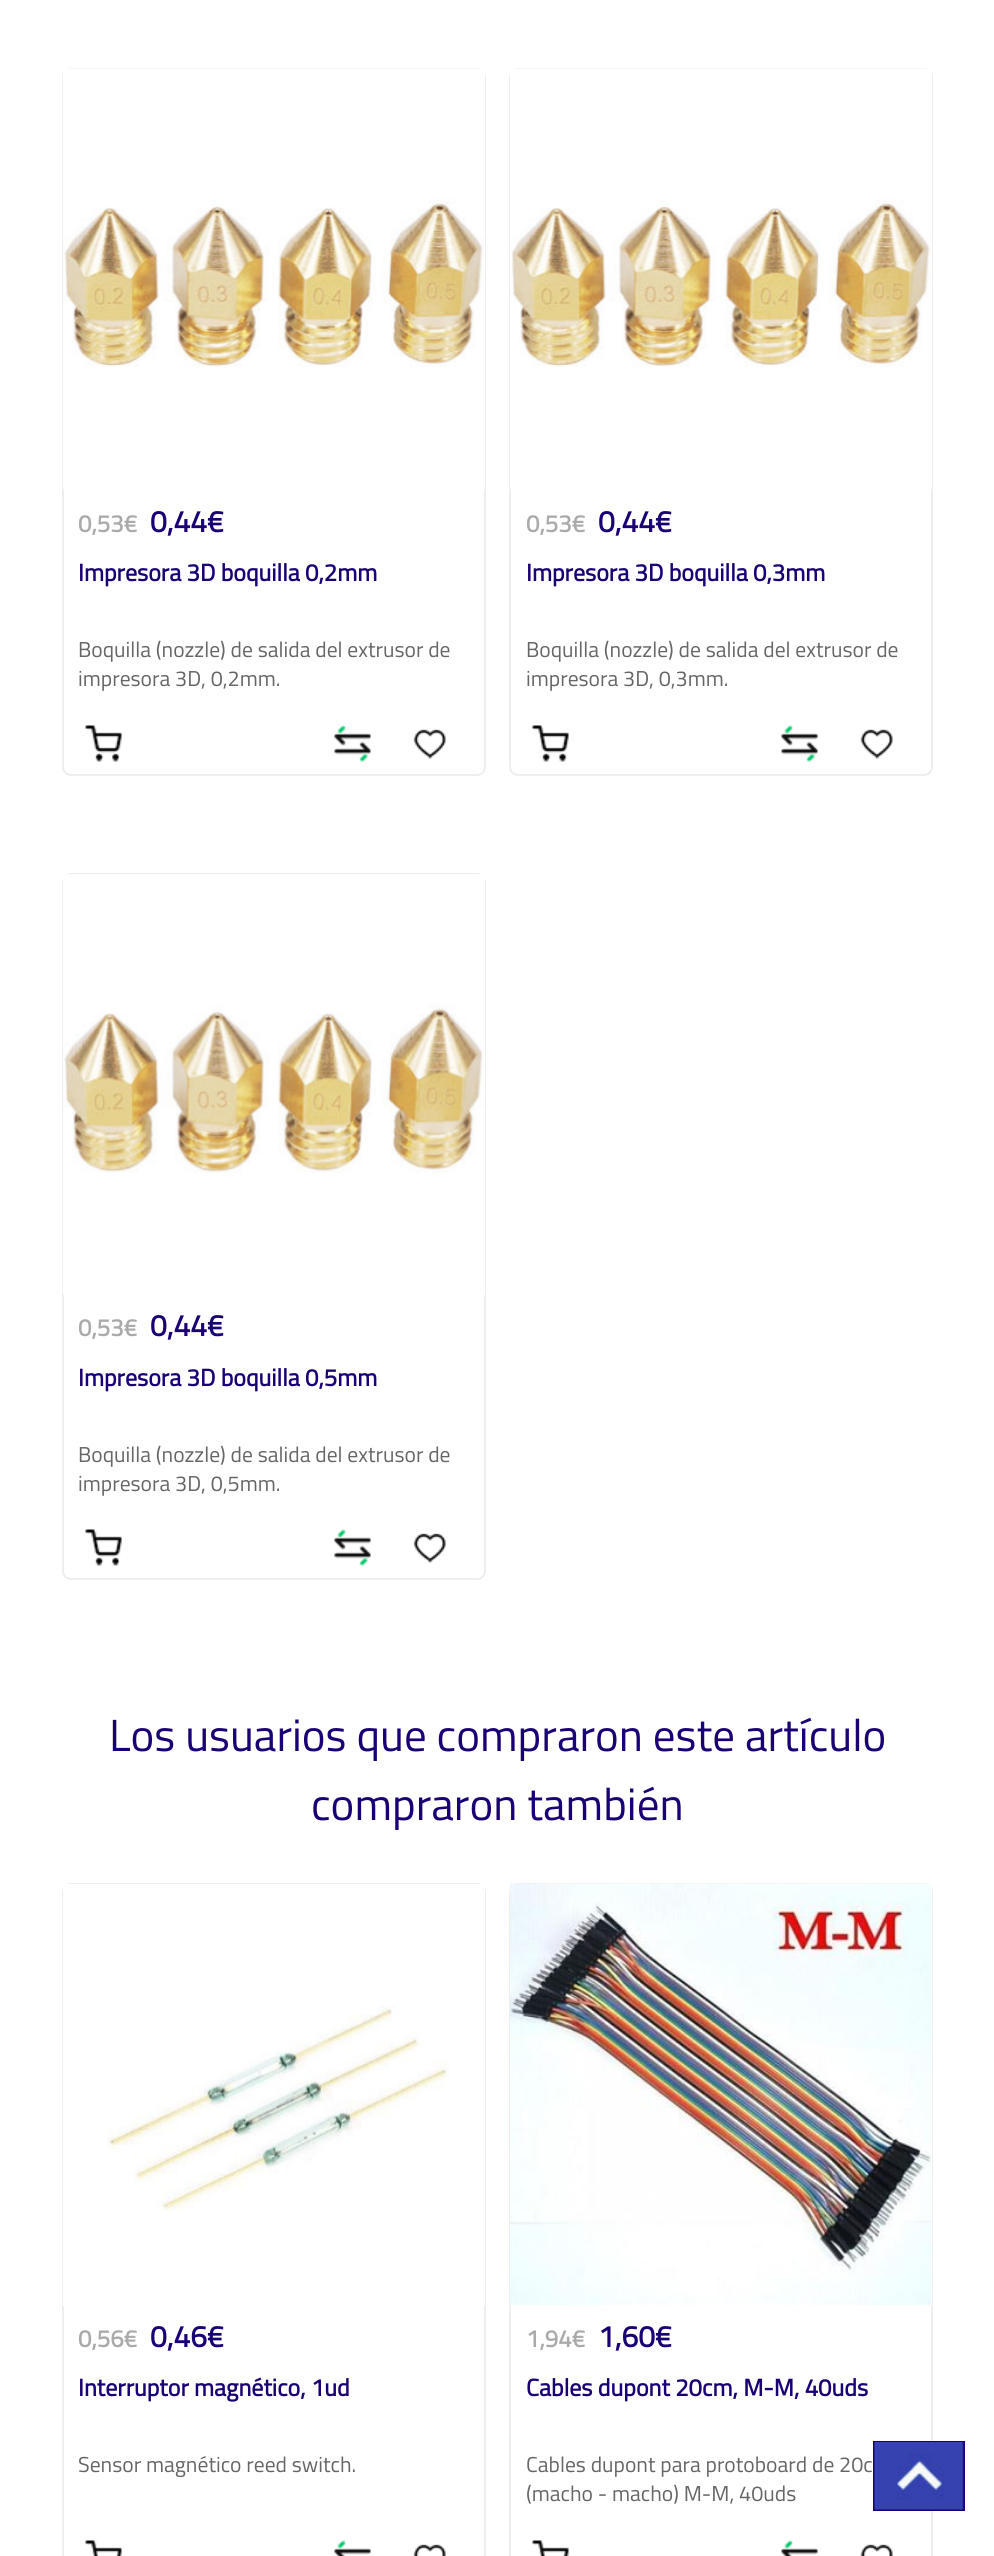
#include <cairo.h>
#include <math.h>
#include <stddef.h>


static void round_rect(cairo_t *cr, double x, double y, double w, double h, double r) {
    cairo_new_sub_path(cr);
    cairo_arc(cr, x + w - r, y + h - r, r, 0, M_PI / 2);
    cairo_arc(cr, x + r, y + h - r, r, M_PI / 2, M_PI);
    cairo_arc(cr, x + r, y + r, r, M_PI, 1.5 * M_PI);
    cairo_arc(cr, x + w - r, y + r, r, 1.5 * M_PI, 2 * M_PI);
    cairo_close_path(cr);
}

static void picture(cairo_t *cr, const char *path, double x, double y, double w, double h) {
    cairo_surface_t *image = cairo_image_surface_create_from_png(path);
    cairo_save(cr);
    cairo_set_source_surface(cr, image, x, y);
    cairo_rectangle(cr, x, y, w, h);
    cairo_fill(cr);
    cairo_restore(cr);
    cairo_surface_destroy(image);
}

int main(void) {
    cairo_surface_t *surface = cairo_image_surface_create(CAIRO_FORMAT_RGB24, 994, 2556);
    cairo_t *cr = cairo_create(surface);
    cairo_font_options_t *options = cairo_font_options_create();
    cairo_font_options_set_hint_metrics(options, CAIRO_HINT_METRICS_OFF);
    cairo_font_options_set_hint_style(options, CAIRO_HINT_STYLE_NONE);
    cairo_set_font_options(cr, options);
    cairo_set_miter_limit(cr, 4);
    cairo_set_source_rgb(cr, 1, 1, 1);
    cairo_paint(cr);
    round_rect(cr, 63, 69, 422, 706, 8);
    cairo_set_source_rgb(cr, 0.933, 0.933, 0.933);
    cairo_stroke(cr);
    cairo_set_source_rgb(cr, 1, 1, 1);
    cairo_rectangle(cr, 63, 69, 422, 420);
    cairo_fill(cr);
    picture(cr, "img1.png", 63, 68, 422, 299);
    cairo_select_font_face(cr, "Titillium Web", CAIRO_FONT_SLANT_NORMAL, CAIRO_FONT_WEIGHT_BOLD);
    cairo_set_font_size(cr, 24);
    cairo_set_source_rgb(cr, 0.667, 0.667, 0.667);
    cairo_move_to(cr, 78, 532);
    cairo_show_text(cr, "0,53€");
    cairo_set_font_size(cr, 30);
    cairo_set_source_rgb(cr, 0.102, 0, 0.459);
    cairo_move_to(cr, 150, 532);
    cairo_show_text(cr, "0,44€");
    cairo_set_font_size(cr, 24);
    cairo_move_to(cr, 78, 581);
    cairo_show_text(cr, "Impresora 3D boquilla 0,2mm");
    cairo_select_font_face(cr, "Titillium Web", CAIRO_FONT_SLANT_NORMAL, CAIRO_FONT_WEIGHT_NORMAL);
    cairo_set_font_size(cr, 21.6);
    cairo_set_source_rgb(cr, 0.4, 0.4, 0.4);
    cairo_move_to(cr, 78, 657);
    cairo_show_text(cr, "Boquilla (nozzle) de salida del extrusor de");
    cairo_move_to(cr, 78, 686);
    cairo_show_text(cr, "impresora 3D, 0,2mm.");
    picture(cr, "img2.png", 85, 725, 37, 37);
    picture(cr, "img3.png", 334, 725, 37, 37);
    picture(cr, "img4.png", 413, 729, 33, 30);
    round_rect(cr, 510, 69, 422, 706, 8);
    cairo_set_source_rgb(cr, 0.933, 0.933, 0.933);
    cairo_stroke(cr);
    cairo_set_source_rgb(cr, 1, 1, 1);
    cairo_rectangle(cr, 510, 69, 422, 420);
    cairo_fill(cr);
    picture(cr, "img5.png", 510, 68, 422, 299);
    cairo_select_font_face(cr, "Titillium Web", CAIRO_FONT_SLANT_NORMAL, CAIRO_FONT_WEIGHT_BOLD);
    cairo_set_font_size(cr, 24);
    cairo_set_source_rgb(cr, 0.667, 0.667, 0.667);
    cairo_move_to(cr, 526, 532);
    cairo_show_text(cr, "0,53€");
    cairo_set_font_size(cr, 30);
    cairo_set_source_rgb(cr, 0.102, 0, 0.459);
    cairo_move_to(cr, 598, 532);
    cairo_show_text(cr, "0,44€");
    cairo_set_font_size(cr, 24);
    cairo_move_to(cr, 526, 581);
    cairo_show_text(cr, "Impresora 3D boquilla 0,3mm");
    cairo_select_font_face(cr, "Titillium Web", CAIRO_FONT_SLANT_NORMAL, CAIRO_FONT_WEIGHT_NORMAL);
    cairo_set_font_size(cr, 21.6);
    cairo_set_source_rgb(cr, 0.4, 0.4, 0.4);
    cairo_move_to(cr, 526, 657);
    cairo_show_text(cr, "Boquilla (nozzle) de salida del extrusor de");
    cairo_move_to(cr, 526, 686);
    cairo_show_text(cr, "impresora 3D, 0,3mm.");
    picture(cr, "img2.png", 532, 725, 37, 37);
    picture(cr, "img3.png", 781, 725, 37, 37);
    picture(cr, "img4.png", 860, 729, 33, 30);
    round_rect(cr, 63, 874, 422, 705, 8);
    cairo_set_source_rgb(cr, 0.933, 0.933, 0.933);
    cairo_stroke(cr);
    cairo_set_source_rgb(cr, 1, 1, 1);
    cairo_rectangle(cr, 63, 875, 422, 420);
    cairo_fill(cr);
    picture(cr, "img6.png", 63, 874, 422, 299);
    cairo_select_font_face(cr, "Titillium Web", CAIRO_FONT_SLANT_NORMAL, CAIRO_FONT_WEIGHT_BOLD);
    cairo_set_font_size(cr, 24);
    cairo_set_source_rgb(cr, 0.667, 0.667, 0.667);
    cairo_move_to(cr, 78, 1336);
    cairo_show_text(cr, "0,53€");
    cairo_set_font_size(cr, 30);
    cairo_set_source_rgb(cr, 0.102, 0, 0.459);
    cairo_move_to(cr, 150, 1336);
    cairo_show_text(cr, "0,44€");
    cairo_set_font_size(cr, 24);
    cairo_move_to(cr, 78, 1386);
    cairo_show_text(cr, "Impresora 3D boquilla 0,5mm");
    cairo_select_font_face(cr, "Titillium Web", CAIRO_FONT_SLANT_NORMAL, CAIRO_FONT_WEIGHT_NORMAL);
    cairo_set_font_size(cr, 21.6);
    cairo_set_source_rgb(cr, 0.4, 0.4, 0.4);
    cairo_move_to(cr, 78, 1462);
    cairo_show_text(cr, "Boquilla (nozzle) de salida del extrusor de");
    cairo_move_to(cr, 78, 1491);
    cairo_show_text(cr, "impresora 3D, 0,5mm.");
    picture(cr, "img2.png", 85, 1529, 37, 37);
    picture(cr, "img3.png", 334, 1529, 37, 37);
    picture(cr, "img4.png", 413, 1533, 33, 30);
    cairo_set_font_size(cr, 45);
    cairo_set_source_rgb(cr, 0.102, 0, 0.459);
    cairo_move_to(cr, 109, 1751);
    cairo_show_text(cr, "Los usuarios que compraron este artículo");
    cairo_move_to(cr, 311, 1820);
    cairo_show_text(cr, "compraron también");
    round_rect(cr, 63, 1884, 422, 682, 8);
    cairo_set_source_rgb(cr, 0.933, 0.933, 0.933);
    cairo_stroke(cr);
    cairo_set_source_rgb(cr, 1, 1, 1);
    cairo_rectangle(cr, 63, 1884, 422, 422);
    cairo_fill(cr);
    picture(cr, "img7.png", 107, 2005, 343, 206);
    cairo_select_font_face(cr, "Titillium Web", CAIRO_FONT_SLANT_NORMAL, CAIRO_FONT_WEIGHT_BOLD);
    cairo_set_font_size(cr, 24);
    cairo_set_source_rgb(cr, 0.667, 0.667, 0.667);
    cairo_move_to(cr, 78, 2347);
    cairo_show_text(cr, "0,56€");
    cairo_set_font_size(cr, 30);
    cairo_set_source_rgb(cr, 0.102, 0, 0.459);
    cairo_move_to(cr, 150, 2347);
    cairo_show_text(cr, "0,46€");
    cairo_set_font_size(cr, 24);
    cairo_move_to(cr, 78, 2396);
    cairo_show_text(cr, "Interruptor magnético, 1ud");
    cairo_select_font_face(cr, "Titillium Web", CAIRO_FONT_SLANT_NORMAL, CAIRO_FONT_WEIGHT_NORMAL);
    cairo_set_font_size(cr, 21.6);
    cairo_set_source_rgb(cr, 0.4, 0.4, 0.4);
    cairo_move_to(cr, 78, 2472);
    cairo_show_text(cr, "Sensor magnético reed switch.");
    picture(cr, "img8.png", 85, 2540, 37, 16);
    picture(cr, "img9.png", 334, 2540, 37, 16);
    picture(cr, "img10.png", 413, 2544, 33, 12);
    round_rect(cr, 510, 1884, 422, 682, 8);
    cairo_set_source_rgb(cr, 0.933, 0.933, 0.933);
    cairo_stroke(cr);
    cairo_set_source_rgb(cr, 1, 1, 1);
    cairo_rectangle(cr, 510, 1884, 422, 422);
    cairo_fill(cr);
    picture(cr, "img11.png", 510, 1883, 422, 422);
    cairo_select_font_face(cr, "Titillium Web", CAIRO_FONT_SLANT_NORMAL, CAIRO_FONT_WEIGHT_BOLD);
    cairo_set_font_size(cr, 24);
    cairo_set_source_rgb(cr, 0.667, 0.667, 0.667);
    cairo_move_to(cr, 526, 2347);
    cairo_show_text(cr, "1,94€");
    cairo_set_font_size(cr, 30);
    cairo_set_source_rgb(cr, 0.102, 0, 0.459);
    cairo_move_to(cr, 598, 2347);
    cairo_show_text(cr, "1,60€");
    cairo_set_font_size(cr, 24);
    cairo_move_to(cr, 526, 2396);
    cairo_show_text(cr, "Cables dupont 20cm, M-M, 40uds");
    cairo_select_font_face(cr, "Titillium Web", CAIRO_FONT_SLANT_NORMAL, CAIRO_FONT_WEIGHT_NORMAL);
    cairo_set_font_size(cr, 21.6);
    cairo_set_source_rgb(cr, 0.4, 0.4, 0.4);
    cairo_move_to(cr, 526, 2472);
    cairo_show_text(cr, "Cables dupont para protoboard de 20c");
    cairo_move_to(cr, 526, 2501);
    cairo_show_text(cr, "(macho - macho) M-M, 40uds");
    picture(cr, "img8.png", 532, 2540, 37, 16);
    picture(cr, "img9.png", 781, 2540, 37, 16);
    picture(cr, "img10.png", 860, 2544, 33, 12);
    cairo_set_source_rgb(cr, 0.102, 0, 0.459);
    cairo_rectangle(cr, 873, 2441, 92, 70);
    cairo_fill(cr);
    picture(cr, "img12.png", 874, 2442, 90, 68);
    cairo_surface_write_to_png(surface, "page.png");
    cairo_font_options_destroy(options);
    cairo_destroy(cr);
    cairo_surface_destroy(surface);
    return 0;
}
